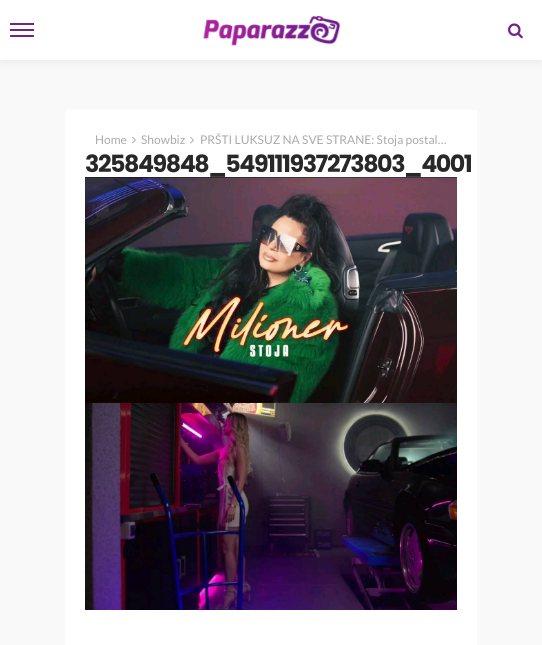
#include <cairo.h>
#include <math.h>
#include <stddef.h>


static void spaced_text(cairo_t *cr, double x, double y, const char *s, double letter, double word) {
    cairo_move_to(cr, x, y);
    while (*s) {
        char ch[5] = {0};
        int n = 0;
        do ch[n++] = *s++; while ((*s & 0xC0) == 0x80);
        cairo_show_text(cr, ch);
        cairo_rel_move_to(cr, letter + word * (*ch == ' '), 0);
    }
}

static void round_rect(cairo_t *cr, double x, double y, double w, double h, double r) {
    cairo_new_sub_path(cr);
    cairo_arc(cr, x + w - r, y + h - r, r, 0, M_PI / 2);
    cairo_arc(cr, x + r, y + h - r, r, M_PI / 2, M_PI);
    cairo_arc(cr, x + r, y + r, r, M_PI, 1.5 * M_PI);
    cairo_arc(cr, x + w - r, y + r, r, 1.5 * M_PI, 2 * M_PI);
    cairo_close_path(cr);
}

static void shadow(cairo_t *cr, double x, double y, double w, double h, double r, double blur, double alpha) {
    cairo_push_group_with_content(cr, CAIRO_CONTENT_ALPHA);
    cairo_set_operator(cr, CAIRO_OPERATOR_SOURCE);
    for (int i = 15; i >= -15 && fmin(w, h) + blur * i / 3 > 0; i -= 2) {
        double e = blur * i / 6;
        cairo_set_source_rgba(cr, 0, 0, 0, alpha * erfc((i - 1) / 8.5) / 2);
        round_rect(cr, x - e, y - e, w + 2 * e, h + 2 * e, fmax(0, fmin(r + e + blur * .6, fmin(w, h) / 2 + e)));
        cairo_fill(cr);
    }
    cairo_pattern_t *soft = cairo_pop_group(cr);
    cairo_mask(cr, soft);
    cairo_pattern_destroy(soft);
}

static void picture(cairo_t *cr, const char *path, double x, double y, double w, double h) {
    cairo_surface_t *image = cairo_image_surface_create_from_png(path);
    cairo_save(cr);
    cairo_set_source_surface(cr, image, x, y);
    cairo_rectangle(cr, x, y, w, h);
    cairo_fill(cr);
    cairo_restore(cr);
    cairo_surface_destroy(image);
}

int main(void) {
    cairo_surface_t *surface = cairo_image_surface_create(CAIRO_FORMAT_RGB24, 542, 645);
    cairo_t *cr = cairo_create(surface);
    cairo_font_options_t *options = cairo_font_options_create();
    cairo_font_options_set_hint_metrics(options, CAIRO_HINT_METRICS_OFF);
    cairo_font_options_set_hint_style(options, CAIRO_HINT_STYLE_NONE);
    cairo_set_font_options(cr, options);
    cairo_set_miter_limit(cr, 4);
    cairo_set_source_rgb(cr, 0.976, 0.976, 0.976);
    cairo_paint(cr);
    cairo_set_source_rgb(cr, 0.11, 0.11, 0.11);
    shadow(cr, 0, 4, 542, 60, 0, 3, 0.05);
    cairo_set_source_rgb(cr, 1, 1, 1);
    cairo_rectangle(cr, 0, 0, 542, 60);
    cairo_fill(cr);
    cairo_set_source_rgb(cr, 0.447, 0.137, 0.537);
    cairo_rectangle(cr, 10, 29, 24, 2);
    cairo_fill(cr);
    cairo_rectangle(cr, 10, 23, 24, 2);
    cairo_fill(cr);
    cairo_rectangle(cr, 10, 35, 24, 2);
    cairo_fill(cr);
    picture(cr, "img1.png", 203, 16, 138, 30);
    picture(cr, "img2.png", 508, 23, 15, 16);
    cairo_set_source_rgb(cr, 1, 1, 1);
    cairo_rectangle(cr, 65, 110, 412, 535);
    cairo_fill(cr);
    cairo_select_font_face(cr, "Lato", CAIRO_FONT_SLANT_NORMAL, CAIRO_FONT_WEIGHT_NORMAL);
    cairo_set_font_size(cr, 12);
    cairo_set_source_rgb(cr, 0.667, 0.667, 0.667);
    cairo_move_to(cr, 95, 144);
    cairo_show_text(cr, "Home");
    picture(cr, "img3.png", 132, 136, 4, 8);
    cairo_move_to(cr, 141, 144);
    cairo_show_text(cr, "Showbiz");
    picture(cr, "img3.png", 190, 136, 4, 8);
    cairo_move_to(cr, 200, 144);
    cairo_show_text(cr, "PRŠTI LUKSUZ NA SVE STRANE: Stoja postal…");
    cairo_select_font_face(cr, "Poppins", CAIRO_FONT_SLANT_NORMAL, CAIRO_FONT_WEIGHT_BOLD);
    cairo_set_font_size(cr, 23.75);
    cairo_set_source_rgb(cr, 0.157, 0.157, 0.157);
    spaced_text(cr, 85, 172, "325849848_549111937273803_4001", -1.45, 0);
    picture(cr, "img4.png", 85, 177, 372, 433);
    cairo_surface_write_to_png(surface, "page.png");
    cairo_font_options_destroy(options);
    cairo_destroy(cr);
    cairo_surface_destroy(surface);
    return 0;
}
